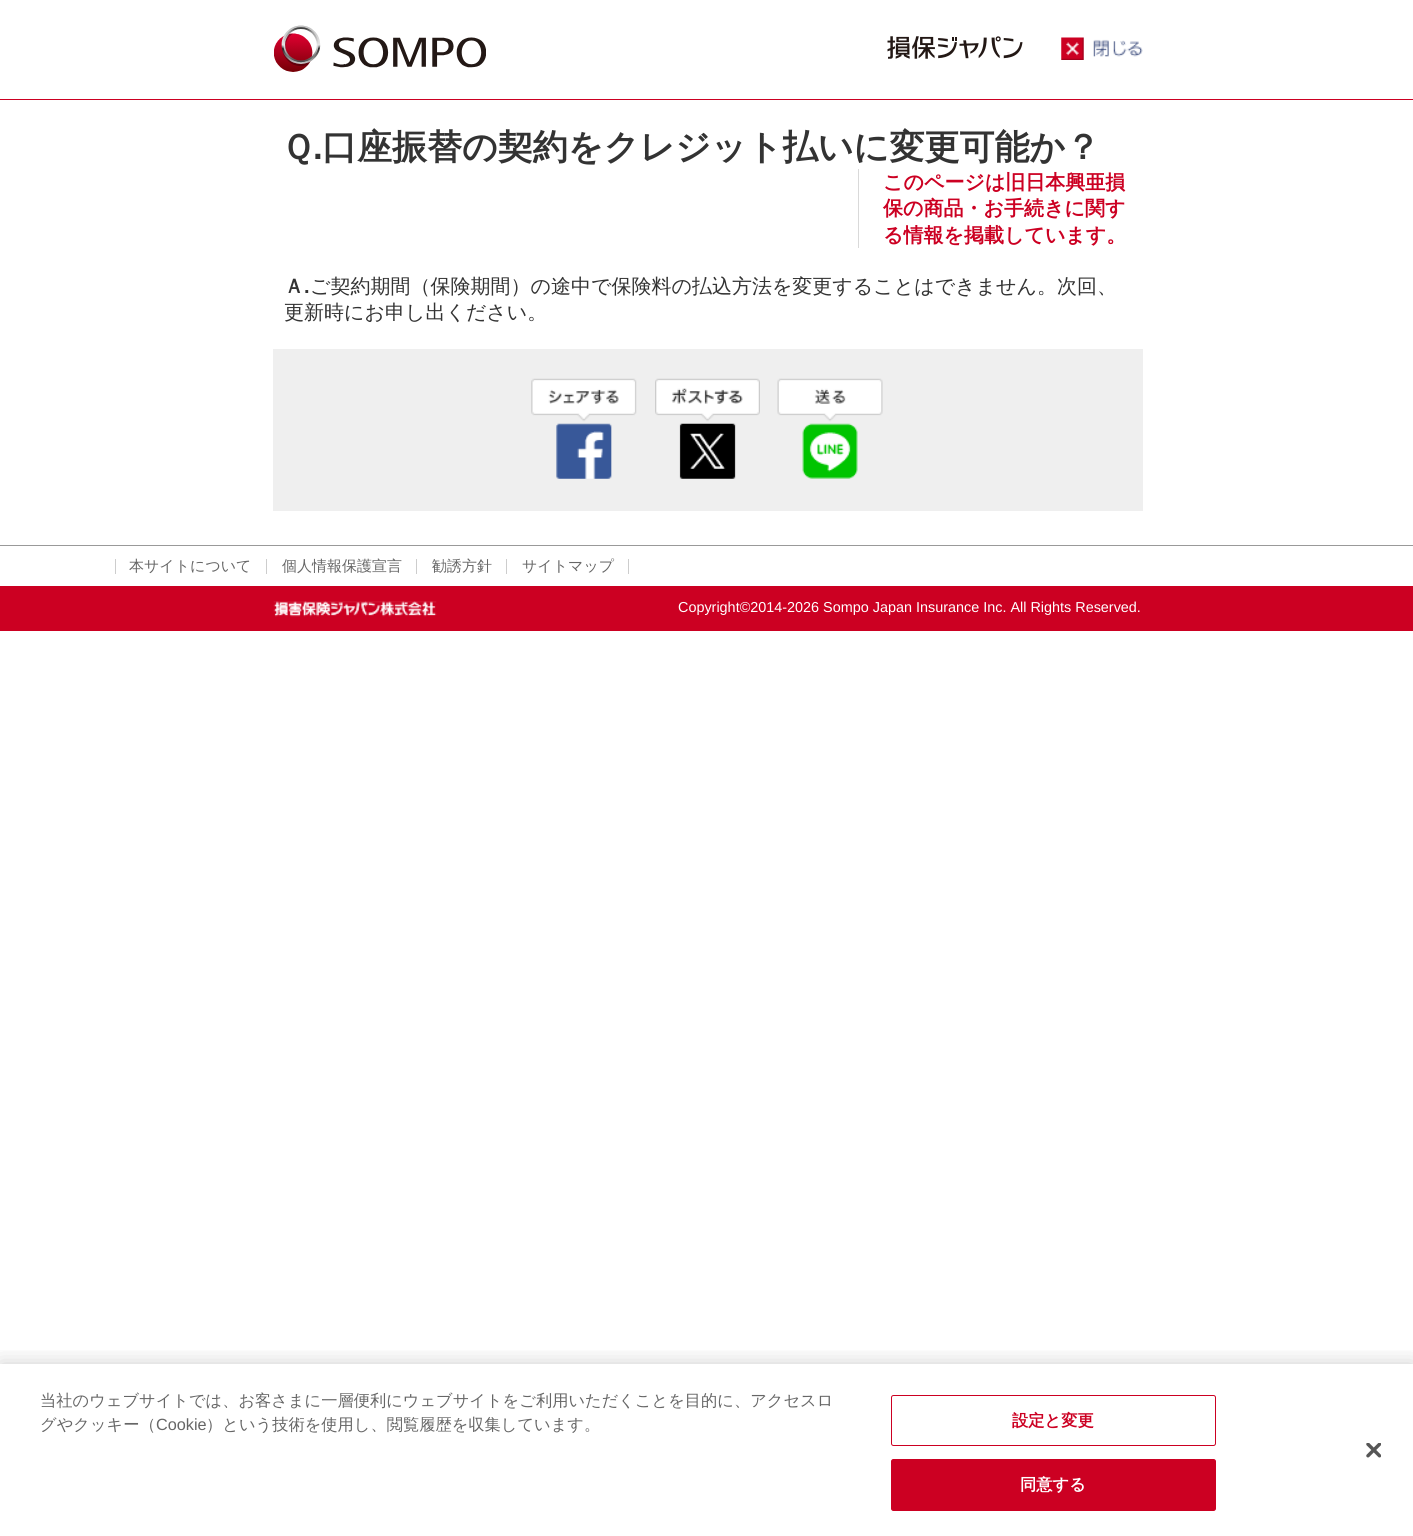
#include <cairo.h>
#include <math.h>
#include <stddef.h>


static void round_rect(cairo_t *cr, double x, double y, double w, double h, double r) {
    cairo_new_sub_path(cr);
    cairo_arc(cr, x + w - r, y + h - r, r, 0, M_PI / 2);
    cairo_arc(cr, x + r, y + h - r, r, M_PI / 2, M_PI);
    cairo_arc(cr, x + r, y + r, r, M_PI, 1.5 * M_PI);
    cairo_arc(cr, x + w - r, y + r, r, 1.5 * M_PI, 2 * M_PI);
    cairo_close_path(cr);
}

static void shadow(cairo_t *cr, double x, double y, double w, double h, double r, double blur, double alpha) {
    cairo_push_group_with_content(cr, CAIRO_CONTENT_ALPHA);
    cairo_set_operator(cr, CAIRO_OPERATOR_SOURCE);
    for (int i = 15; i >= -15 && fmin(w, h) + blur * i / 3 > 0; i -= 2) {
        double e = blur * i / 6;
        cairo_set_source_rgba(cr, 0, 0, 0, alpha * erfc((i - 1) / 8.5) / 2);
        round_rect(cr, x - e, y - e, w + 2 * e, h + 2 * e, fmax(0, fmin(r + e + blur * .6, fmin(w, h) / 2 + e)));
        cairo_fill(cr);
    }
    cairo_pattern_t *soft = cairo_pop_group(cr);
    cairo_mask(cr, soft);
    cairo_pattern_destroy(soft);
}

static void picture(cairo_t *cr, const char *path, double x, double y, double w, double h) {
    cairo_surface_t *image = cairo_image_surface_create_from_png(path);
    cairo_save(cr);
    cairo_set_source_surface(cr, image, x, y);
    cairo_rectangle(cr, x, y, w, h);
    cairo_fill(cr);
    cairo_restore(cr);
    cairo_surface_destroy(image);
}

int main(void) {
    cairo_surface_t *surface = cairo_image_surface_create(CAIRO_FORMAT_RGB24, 1413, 1536);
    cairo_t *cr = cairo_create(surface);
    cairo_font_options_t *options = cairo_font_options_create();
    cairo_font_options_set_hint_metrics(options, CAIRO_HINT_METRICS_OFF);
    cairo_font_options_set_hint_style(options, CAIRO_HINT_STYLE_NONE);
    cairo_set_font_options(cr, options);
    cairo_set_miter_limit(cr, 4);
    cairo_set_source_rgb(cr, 1, 1, 1);
    cairo_paint(cr);
    picture(cr, "img1.png", 274, 25, 212, 47);
    picture(cr, "img2.png", 887, 36, 136, 23);
    picture(cr, "img3.png", 1061, 37, 82, 23);
    cairo_set_source_rgb(cr, 0.8, 0, 0.133);
    cairo_rectangle(cr, 0, 99, 1413, 1);
    cairo_fill(cr);
    cairo_select_font_face(cr, "WenQuanYi Zen Hei", CAIRO_FONT_SLANT_NORMAL, CAIRO_FONT_WEIGHT_BOLD);
    cairo_set_font_size(cr, 35);
    cairo_set_source_rgb(cr, 0.2, 0.2, 0.2);
    cairo_move_to(cr, 281, 159);
    cairo_show_text(cr, "Ｑ");
    cairo_select_font_face(cr, "Liberation Sans", CAIRO_FONT_SLANT_NORMAL, CAIRO_FONT_WEIGHT_BOLD);
    cairo_move_to(cr, 313, 159);
    cairo_show_text(cr, ".");
    cairo_select_font_face(cr, "WenQuanYi Zen Hei", CAIRO_FONT_SLANT_NORMAL, CAIRO_FONT_WEIGHT_BOLD);
    cairo_move_to(cr, 322, 159);
    cairo_show_text(cr, "口座振替の契約をクレジット払いに変更可能か？");
    cairo_set_source_rgb(cr, 0.851, 0.851, 0.851);
    cairo_rectangle(cr, 858, 169, 1, 79);
    cairo_fill(cr);
    cairo_set_font_size(cr, 20);
    cairo_set_source_rgb(cr, 0.8, 0, 0.133);
    cairo_move_to(cr, 883, 189);
    cairo_show_text(cr, "このページは旧日本興亜損");
    cairo_move_to(cr, 883, 215);
    cairo_show_text(cr, "保の商品・お手続きに関す");
    cairo_move_to(cr, 883, 242);
    cairo_show_text(cr, "る情報を掲載しています。");
    cairo_set_source_rgb(cr, 0.2, 0.2, 0.2);
    cairo_move_to(cr, 284, 293);
    cairo_show_text(cr, "Ａ");
    cairo_select_font_face(cr, "Liberation Sans", CAIRO_FONT_SLANT_NORMAL, CAIRO_FONT_WEIGHT_BOLD);
    cairo_move_to(cr, 304, 293);
    cairo_show_text(cr, ".");
    cairo_select_font_face(cr, "WenQuanYi Zen Hei Medium", CAIRO_FONT_SLANT_NORMAL, CAIRO_FONT_WEIGHT_NORMAL);
    cairo_move_to(cr, 310, 293);
    cairo_show_text(cr, "ご契約期間（保険期間）の途中で保険料の払込方法を変更することはできません。次回、");
    cairo_move_to(cr, 284, 319);
    cairo_show_text(cr, "更新時にお申し出ください。");
    cairo_set_source_rgb(cr, 0.937, 0.937, 0.937);
    cairo_rectangle(cr, 273, 349, 870, 162);
    cairo_fill(cr);
    picture(cr, "img4.png", 531, 378, 106, 101);
    picture(cr, "img5.png", 655, 378, 105, 101);
    picture(cr, "img6.png", 777, 378, 106, 101);
    cairo_set_source_rgb(cr, 0.6, 0.6, 0.6);
    cairo_rectangle(cr, 0, 545, 1413, 1);
    cairo_fill(cr);
    cairo_set_source_rgb(cr, 0.804, 0.804, 0.804);
    cairo_rectangle(cr, 115, 559, 1, 15);
    cairo_fill(cr);
    cairo_set_font_size(cr, 15);
    cairo_set_source_rgb(cr, 0.4, 0.4, 0.4);
    cairo_move_to(cr, 129, 571);
    cairo_show_text(cr, "本サイトについて");
    cairo_set_source_rgb(cr, 0.804, 0.804, 0.804);
    cairo_rectangle(cr, 266, 559, 1, 15);
    cairo_fill(cr);
    cairo_set_source_rgb(cr, 0.4, 0.4, 0.4);
    cairo_move_to(cr, 282, 571);
    cairo_show_text(cr, "個人情報保護宣言");
    cairo_set_source_rgb(cr, 0.804, 0.804, 0.804);
    cairo_rectangle(cr, 416, 559, 1, 15);
    cairo_fill(cr);
    cairo_set_source_rgb(cr, 0.4, 0.4, 0.4);
    cairo_move_to(cr, 432, 571);
    cairo_show_text(cr, "勧誘方針");
    cairo_set_source_rgb(cr, 0.804, 0.804, 0.804);
    cairo_rectangle(cr, 506, 559, 1, 15);
    cairo_fill(cr);
    cairo_set_source_rgb(cr, 0.4, 0.4, 0.4);
    cairo_move_to(cr, 522, 571);
    cairo_show_text(cr, "サイトマップ");
    cairo_set_source_rgb(cr, 0.804, 0.804, 0.804);
    cairo_rectangle(cr, 628, 559, 1, 15);
    cairo_fill(cr);
    cairo_set_source_rgb(cr, 0.8, 0, 0.133);
    cairo_rectangle(cr, 0, 586, 1413, 45);
    cairo_fill(cr);
    picture(cr, "img7.png", 273, 601, 164, 16);
    cairo_select_font_face(cr, "Liberation Sans", CAIRO_FONT_SLANT_NORMAL, CAIRO_FONT_WEIGHT_NORMAL);
    cairo_set_font_size(cr, 14.4);
    cairo_set_source_rgb(cr, 1, 1, 1);
    cairo_move_to(cr, 678, 612);
    cairo_show_text(cr, "Copyright©2014-2026 Sompo Japan Insurance Inc. All Rights Reserved.");
    cairo_save(cr);
    cairo_rectangle(cr, 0, 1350, 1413, 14);
    cairo_clip(cr);
    cairo_set_source_rgb(cr, 0, 0, 0);
    shadow(cr, 0, 1364, 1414, 172, 0, 11, 0.2);
    cairo_restore(cr);
    cairo_select_font_face(cr, "WenQuanYi Zen Hei Medium", CAIRO_FONT_SLANT_NORMAL, CAIRO_FONT_WEIGHT_NORMAL);
    cairo_set_font_size(cr, 16.25);
    cairo_set_source_rgb(cr, 0.4, 0.4, 0.4);
    cairo_move_to(cr, 40, 1406);
    cairo_show_text(cr, "当社のウェブサイトでは、お客さまに一層便利にウェブサイトをご利用いただくことを目的に、アクセスロ");
    cairo_move_to(cr, 40, 1430);
    cairo_show_text(cr, "グやクッキー（");
    cairo_select_font_face(cr, "Liberation Sans", CAIRO_FONT_SLANT_NORMAL, CAIRO_FONT_WEIGHT_NORMAL);
    cairo_move_to(cr, 156, 1430);
    cairo_show_text(cr, "Cookie");
    cairo_select_font_face(cr, "WenQuanYi Zen Hei Medium", CAIRO_FONT_SLANT_NORMAL, CAIRO_FONT_WEIGHT_NORMAL);
    cairo_move_to(cr, 206, 1430);
    cairo_show_text(cr, "）という技術を使用し、閲覧履歴を収集しています。");
    round_rect(cr, 891.5, 1395.5, 324, 50, 2);
    cairo_set_source_rgb(cr, 0.8, 0, 0.133);
    cairo_set_line_width(cr, 1);
    cairo_stroke(cr);
    cairo_select_font_face(cr, "WenQuanYi Zen Hei", CAIRO_FONT_SLANT_NORMAL, CAIRO_FONT_WEIGHT_BOLD);
    cairo_move_to(cr, 1012, 1426);
    cairo_show_text(cr, "設定と変更");
    round_rect(cr, 891.5, 1459.5, 324, 51, 2);
    cairo_fill_preserve(cr);
    cairo_stroke(cr);
    cairo_set_source_rgb(cr, 1, 1, 1);
    cairo_move_to(cr, 1020, 1490);
    cairo_show_text(cr, "同意する");
    picture(cr, "img8.png", 1366, 1443, 15, 15);
    cairo_surface_write_to_png(surface, "page.png");
    cairo_font_options_destroy(options);
    cairo_destroy(cr);
    cairo_surface_destroy(surface);
    return 0;
}
